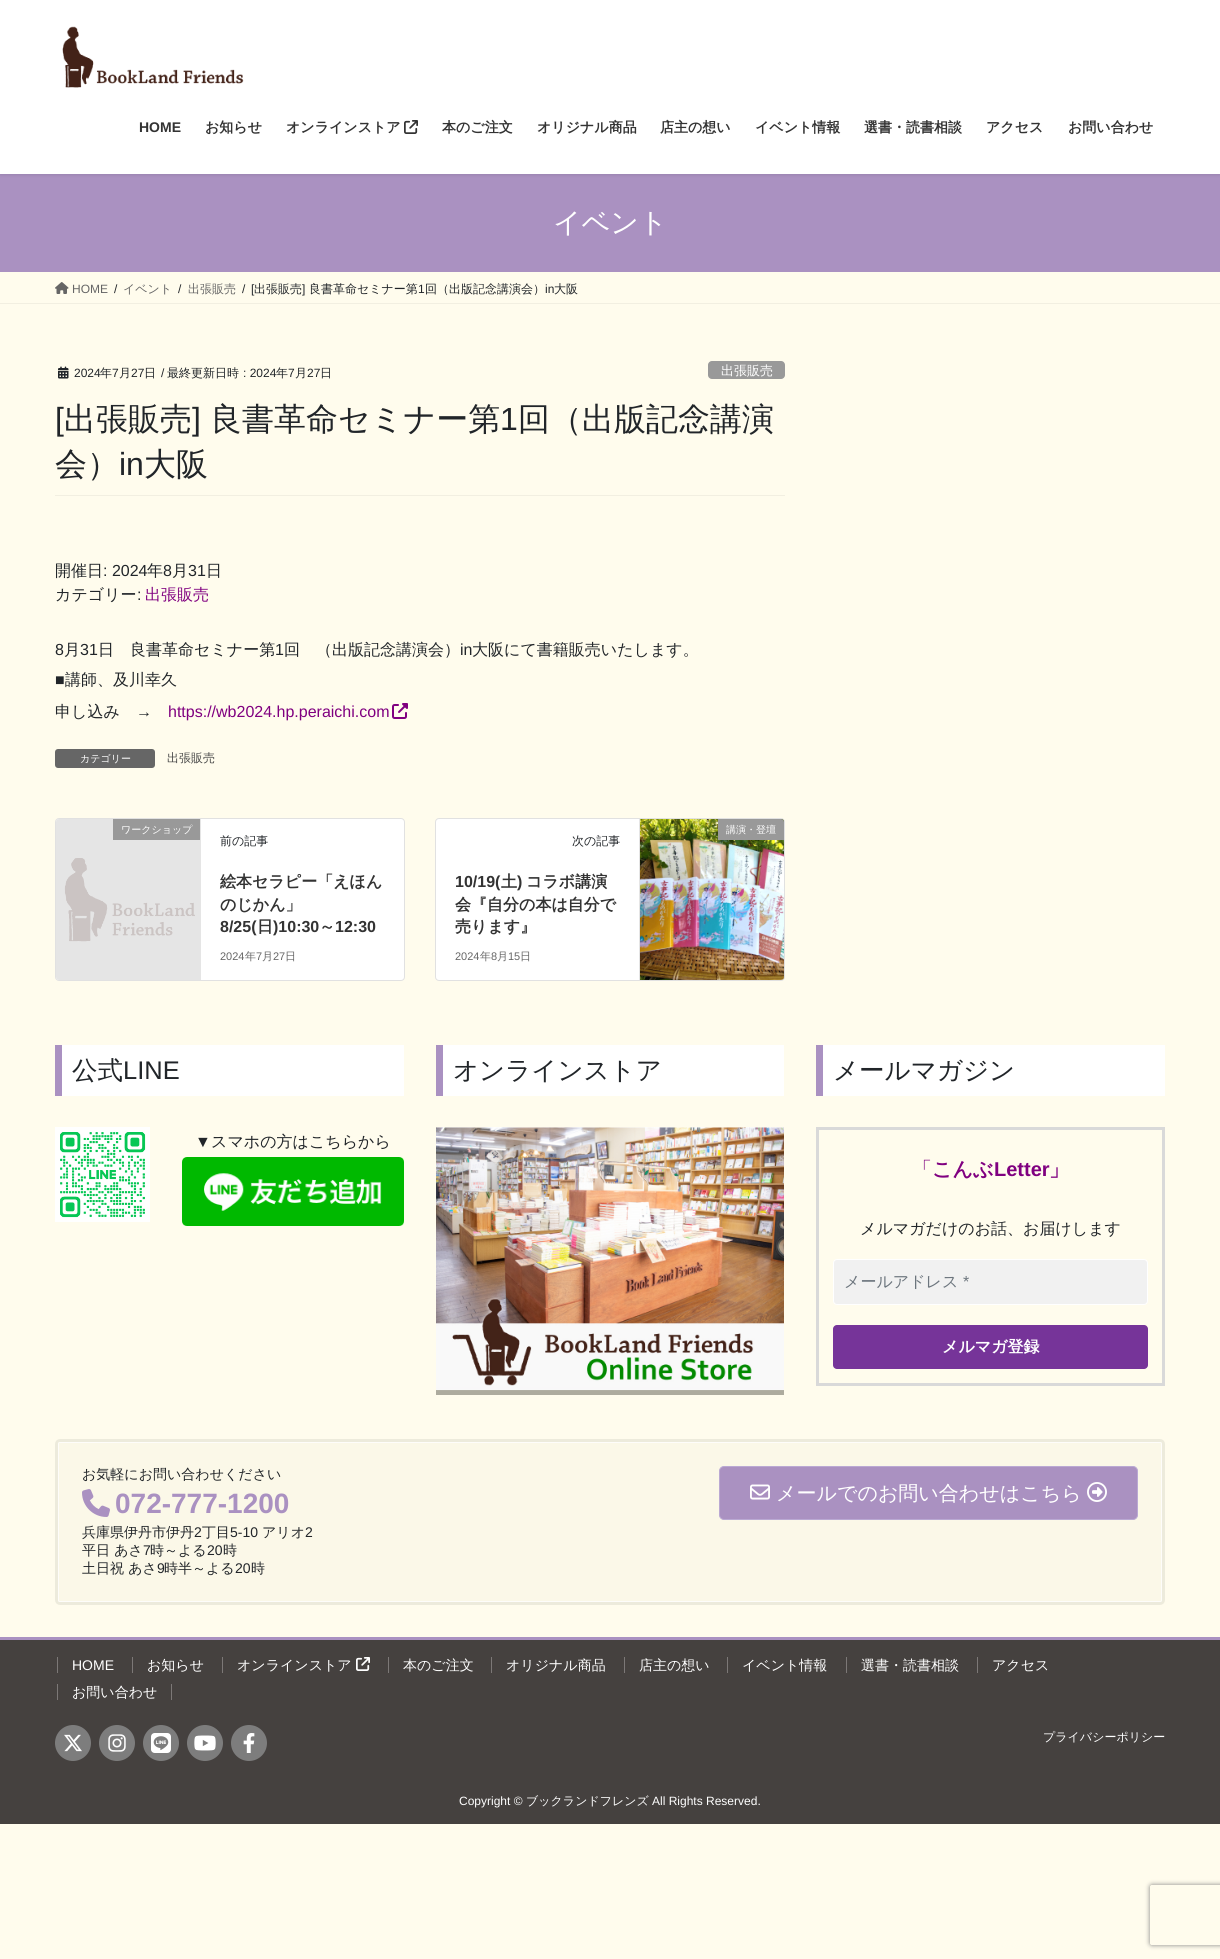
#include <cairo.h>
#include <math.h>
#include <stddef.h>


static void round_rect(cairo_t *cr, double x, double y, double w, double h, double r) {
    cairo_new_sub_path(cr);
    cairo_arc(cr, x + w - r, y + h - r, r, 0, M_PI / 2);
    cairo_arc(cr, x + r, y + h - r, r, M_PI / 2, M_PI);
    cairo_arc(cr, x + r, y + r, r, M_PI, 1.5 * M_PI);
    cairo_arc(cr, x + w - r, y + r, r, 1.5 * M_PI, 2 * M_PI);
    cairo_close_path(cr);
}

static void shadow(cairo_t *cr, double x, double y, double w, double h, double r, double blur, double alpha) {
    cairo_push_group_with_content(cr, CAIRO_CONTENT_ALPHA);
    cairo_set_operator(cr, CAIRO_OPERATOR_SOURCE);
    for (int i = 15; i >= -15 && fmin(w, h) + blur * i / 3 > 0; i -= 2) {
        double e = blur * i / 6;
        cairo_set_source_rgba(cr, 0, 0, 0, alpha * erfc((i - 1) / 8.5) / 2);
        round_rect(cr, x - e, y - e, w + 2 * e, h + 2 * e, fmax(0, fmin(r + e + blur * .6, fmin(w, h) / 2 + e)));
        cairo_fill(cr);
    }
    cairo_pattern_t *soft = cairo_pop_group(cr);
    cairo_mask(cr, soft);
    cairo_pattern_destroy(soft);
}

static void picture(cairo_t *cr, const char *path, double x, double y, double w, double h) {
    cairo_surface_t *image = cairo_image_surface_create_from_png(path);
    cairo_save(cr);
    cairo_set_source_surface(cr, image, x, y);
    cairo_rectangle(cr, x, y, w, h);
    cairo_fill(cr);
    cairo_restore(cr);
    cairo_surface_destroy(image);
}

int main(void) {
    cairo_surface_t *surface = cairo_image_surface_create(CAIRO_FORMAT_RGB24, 1220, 1959);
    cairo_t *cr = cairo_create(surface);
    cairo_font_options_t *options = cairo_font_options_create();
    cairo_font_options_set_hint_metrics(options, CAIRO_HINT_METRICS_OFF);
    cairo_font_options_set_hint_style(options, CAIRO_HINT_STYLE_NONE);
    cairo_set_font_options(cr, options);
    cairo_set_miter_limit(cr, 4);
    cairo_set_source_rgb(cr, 1, 0.988, 0.929);
    cairo_paint(cr);
    cairo_set_source_rgb(cr, 0.667, 0.569, 0.757);
    cairo_rectangle(cr, 0, 174, 1220, 98);
    cairo_fill(cr);
    cairo_set_source_rgb(cr, 0, 0, 0);
    shadow(cr, 0, 1, 1220, 174, 0, 1.5, 0.1);
    cairo_set_source_rgb(cr, 1, 1, 1);
    cairo_rectangle(cr, 0, 0, 1220, 174);
    cairo_fill(cr);
    picture(cr, "img1.png", 62, 26, 182, 62);
    cairo_select_font_face(cr, "Liberation Sans", CAIRO_FONT_SLANT_NORMAL, CAIRO_FONT_WEIGHT_BOLD);
    cairo_set_font_size(cr, 14);
    cairo_set_source_rgb(cr, 0.2, 0.2, 0.2);
    cairo_move_to(cr, 139, 132);
    cairo_show_text(cr, "HOME");
    cairo_select_font_face(cr, "WenQuanYi Zen Hei", CAIRO_FONT_SLANT_NORMAL, CAIRO_FONT_WEIGHT_BOLD);
    cairo_move_to(cr, 205, 132);
    cairo_show_text(cr, "お知らせ");
    cairo_move_to(cr, 286, 132);
    cairo_show_text(cr, "オンラインストア");
    picture(cr, "img2.png", 404, 120, 14, 14);
    cairo_move_to(cr, 442, 132);
    cairo_show_text(cr, "本のご注文");
    cairo_move_to(cr, 537, 132);
    cairo_show_text(cr, "オリジナル商品");
    cairo_move_to(cr, 660, 132);
    cairo_show_text(cr, "店主の想い");
    cairo_move_to(cr, 755, 132);
    cairo_show_text(cr, "イベント情報");
    cairo_move_to(cr, 864, 132);
    cairo_show_text(cr, "選書・読書相談");
    cairo_move_to(cr, 986, 132);
    cairo_show_text(cr, "アクセス");
    cairo_move_to(cr, 1068, 132);
    cairo_show_text(cr, "お問い合わせ");
    cairo_select_font_face(cr, "WenQuanYi Zen Hei Medium", CAIRO_FONT_SLANT_NORMAL, CAIRO_FONT_WEIGHT_NORMAL);
    cairo_set_font_size(cr, 28);
    cairo_set_source_rgb(cr, 1, 1, 1);
    cairo_move_to(cr, 553, 232);
    cairo_show_text(cr, "イベント");
    cairo_set_source_rgb(cr, 0.949, 0.937, 0.882);
    cairo_rectangle(cr, 0, 303, 1220, 1);
    cairo_fill(cr);
    picture(cr, "img3.png", 55, 282, 14, 12);
    cairo_select_font_face(cr, "Liberation Sans", CAIRO_FONT_SLANT_NORMAL, CAIRO_FONT_WEIGHT_NORMAL);
    cairo_set_font_size(cr, 12);
    cairo_set_source_rgb(cr, 0.4, 0.4, 0.4);
    cairo_move_to(cr, 72, 293);
    cairo_show_text(cr, "HOME");
    cairo_set_source_rgb(cr, 0.129, 0.145, 0.161);
    cairo_move_to(cr, 114, 293);
    cairo_show_text(cr, "/");
    cairo_select_font_face(cr, "WenQuanYi Zen Hei Medium", CAIRO_FONT_SLANT_NORMAL, CAIRO_FONT_WEIGHT_NORMAL);
    cairo_set_source_rgb(cr, 0.4, 0.4, 0.4);
    cairo_move_to(cr, 123, 293);
    cairo_show_text(cr, "イベント");
    cairo_select_font_face(cr, "Liberation Sans", CAIRO_FONT_SLANT_NORMAL, CAIRO_FONT_WEIGHT_NORMAL);
    cairo_set_source_rgb(cr, 0.129, 0.145, 0.161);
    cairo_move_to(cr, 178, 293);
    cairo_show_text(cr, "/");
    cairo_select_font_face(cr, "WenQuanYi Zen Hei Medium", CAIRO_FONT_SLANT_NORMAL, CAIRO_FONT_WEIGHT_NORMAL);
    cairo_set_source_rgb(cr, 0.4, 0.4, 0.4);
    cairo_move_to(cr, 188, 293);
    cairo_show_text(cr, "出張販売");
    cairo_select_font_face(cr, "Liberation Sans", CAIRO_FONT_SLANT_NORMAL, CAIRO_FONT_WEIGHT_NORMAL);
    cairo_set_source_rgb(cr, 0.129, 0.145, 0.161);
    cairo_move_to(cr, 242, 293);
    cairo_show_text(cr, "/");
    cairo_move_to(cr, 251, 293);
    cairo_show_text(cr, "[");
    cairo_select_font_face(cr, "WenQuanYi Zen Hei Medium", CAIRO_FONT_SLANT_NORMAL, CAIRO_FONT_WEIGHT_NORMAL);
    cairo_move_to(cr, 254, 293);
    cairo_show_text(cr, "出張販売");
    cairo_select_font_face(cr, "Liberation Sans", CAIRO_FONT_SLANT_NORMAL, CAIRO_FONT_WEIGHT_NORMAL);
    cairo_move_to(cr, 302, 293);
    cairo_show_text(cr, "]");
    cairo_select_font_face(cr, "WenQuanYi Zen Hei Medium", CAIRO_FONT_SLANT_NORMAL, CAIRO_FONT_WEIGHT_NORMAL);
    cairo_move_to(cr, 309, 293);
    cairo_show_text(cr, "良書革命セミナー第");
    cairo_select_font_face(cr, "Liberation Sans", CAIRO_FONT_SLANT_NORMAL, CAIRO_FONT_WEIGHT_NORMAL);
    cairo_move_to(cr, 418, 293);
    cairo_show_text(cr, "1");
    cairo_select_font_face(cr, "WenQuanYi Zen Hei Medium", CAIRO_FONT_SLANT_NORMAL, CAIRO_FONT_WEIGHT_NORMAL);
    cairo_move_to(cr, 425, 293);
    cairo_show_text(cr, "回（出版記念講演会）");
    cairo_select_font_face(cr, "Liberation Sans", CAIRO_FONT_SLANT_NORMAL, CAIRO_FONT_WEIGHT_NORMAL);
    cairo_move_to(cr, 545, 293);
    cairo_show_text(cr, "in");
    cairo_select_font_face(cr, "WenQuanYi Zen Hei Medium", CAIRO_FONT_SLANT_NORMAL, CAIRO_FONT_WEIGHT_NORMAL);
    cairo_move_to(cr, 554, 293);
    cairo_show_text(cr, "大阪");
    cairo_set_source_rgb(cr, 0.949, 0.937, 0.882);
    cairo_rectangle(cr, 55, 495, 730, 1);
    cairo_fill(cr);
    picture(cr, "img4.png", 58, 366, 11, 13);
    cairo_select_font_face(cr, "Liberation Sans", CAIRO_FONT_SLANT_NORMAL, CAIRO_FONT_WEIGHT_NORMAL);
    cairo_set_source_rgb(cr, 0.129, 0.145, 0.161);
    cairo_move_to(cr, 74, 377);
    cairo_show_text(cr, "2024");
    cairo_select_font_face(cr, "WenQuanYi Zen Hei Medium", CAIRO_FONT_SLANT_NORMAL, CAIRO_FONT_WEIGHT_NORMAL);
    cairo_move_to(cr, 100, 377);
    cairo_show_text(cr, "年");
    cairo_select_font_face(cr, "Liberation Sans", CAIRO_FONT_SLANT_NORMAL, CAIRO_FONT_WEIGHT_NORMAL);
    cairo_move_to(cr, 112, 377);
    cairo_show_text(cr, "7");
    cairo_select_font_face(cr, "WenQuanYi Zen Hei Medium", CAIRO_FONT_SLANT_NORMAL, CAIRO_FONT_WEIGHT_NORMAL);
    cairo_move_to(cr, 119, 377);
    cairo_show_text(cr, "月");
    cairo_select_font_face(cr, "Liberation Sans", CAIRO_FONT_SLANT_NORMAL, CAIRO_FONT_WEIGHT_NORMAL);
    cairo_move_to(cr, 131, 377);
    cairo_show_text(cr, "27");
    cairo_select_font_face(cr, "WenQuanYi Zen Hei Medium", CAIRO_FONT_SLANT_NORMAL, CAIRO_FONT_WEIGHT_NORMAL);
    cairo_move_to(cr, 144, 377);
    cairo_show_text(cr, "日");
    cairo_select_font_face(cr, "Liberation Sans", CAIRO_FONT_SLANT_NORMAL, CAIRO_FONT_WEIGHT_NORMAL);
    cairo_move_to(cr, 161, 377);
    cairo_show_text(cr, "/");
    cairo_select_font_face(cr, "WenQuanYi Zen Hei Medium", CAIRO_FONT_SLANT_NORMAL, CAIRO_FONT_WEIGHT_NORMAL);
    cairo_move_to(cr, 167, 377);
    cairo_show_text(cr, "最終更新日時");
    cairo_select_font_face(cr, "Liberation Sans", CAIRO_FONT_SLANT_NORMAL, CAIRO_FONT_WEIGHT_NORMAL);
    cairo_move_to(cr, 243, 377);
    cairo_show_text(cr, ": 2024");
    cairo_select_font_face(cr, "WenQuanYi Zen Hei Medium", CAIRO_FONT_SLANT_NORMAL, CAIRO_FONT_WEIGHT_NORMAL);
    cairo_move_to(cr, 276, 377);
    cairo_show_text(cr, "年");
    cairo_select_font_face(cr, "Liberation Sans", CAIRO_FONT_SLANT_NORMAL, CAIRO_FONT_WEIGHT_NORMAL);
    cairo_move_to(cr, 288, 377);
    cairo_show_text(cr, "7");
    cairo_select_font_face(cr, "WenQuanYi Zen Hei Medium", CAIRO_FONT_SLANT_NORMAL, CAIRO_FONT_WEIGHT_NORMAL);
    cairo_move_to(cr, 295, 377);
    cairo_show_text(cr, "月");
    cairo_select_font_face(cr, "Liberation Sans", CAIRO_FONT_SLANT_NORMAL, CAIRO_FONT_WEIGHT_NORMAL);
    cairo_move_to(cr, 307, 377);
    cairo_show_text(cr, "27");
    cairo_select_font_face(cr, "WenQuanYi Zen Hei Medium", CAIRO_FONT_SLANT_NORMAL, CAIRO_FONT_WEIGHT_NORMAL);
    cairo_move_to(cr, 320, 377);
    cairo_show_text(cr, "日");
    cairo_set_source_rgb(cr, 0.6, 0.6, 0.6);
    round_rect(cr, 708, 361, 77, 18, 4);
    cairo_fill(cr);
    cairo_set_font_size(cr, 13);
    cairo_set_source_rgb(cr, 1, 1, 1);
    cairo_move_to(cr, 721, 375);
    cairo_show_text(cr, "出張販売");
    cairo_select_font_face(cr, "Liberation Sans", CAIRO_FONT_SLANT_NORMAL, CAIRO_FONT_WEIGHT_NORMAL);
    cairo_set_font_size(cr, 32);
    cairo_set_source_rgb(cr, 0.129, 0.145, 0.161);
    cairo_move_to(cr, 55, 430);
    cairo_show_text(cr, "[");
    cairo_select_font_face(cr, "WenQuanYi Zen Hei Medium", CAIRO_FONT_SLANT_NORMAL, CAIRO_FONT_WEIGHT_NORMAL);
    cairo_move_to(cr, 64, 430);
    cairo_show_text(cr, "出張販売");
    cairo_select_font_face(cr, "Liberation Sans", CAIRO_FONT_SLANT_NORMAL, CAIRO_FONT_WEIGHT_NORMAL);
    cairo_move_to(cr, 192, 430);
    cairo_show_text(cr, "]");
    cairo_select_font_face(cr, "WenQuanYi Zen Hei Medium", CAIRO_FONT_SLANT_NORMAL, CAIRO_FONT_WEIGHT_NORMAL);
    cairo_move_to(cr, 210, 430);
    cairo_show_text(cr, "良書革命セミナー第");
    cairo_select_font_face(cr, "Liberation Sans", CAIRO_FONT_SLANT_NORMAL, CAIRO_FONT_WEIGHT_NORMAL);
    cairo_move_to(cr, 500, 430);
    cairo_show_text(cr, "1");
    cairo_select_font_face(cr, "WenQuanYi Zen Hei Medium", CAIRO_FONT_SLANT_NORMAL, CAIRO_FONT_WEIGHT_NORMAL);
    cairo_move_to(cr, 518, 430);
    cairo_show_text(cr, "回（出版記念講演");
    cairo_move_to(cr, 55, 475);
    cairo_show_text(cr, "会）");
    cairo_select_font_face(cr, "Liberation Sans", CAIRO_FONT_SLANT_NORMAL, CAIRO_FONT_WEIGHT_NORMAL);
    cairo_move_to(cr, 119, 475);
    cairo_show_text(cr, "in");
    cairo_select_font_face(cr, "WenQuanYi Zen Hei Medium", CAIRO_FONT_SLANT_NORMAL, CAIRO_FONT_WEIGHT_NORMAL);
    cairo_move_to(cr, 144, 475);
    cairo_show_text(cr, "大阪");
    cairo_set_font_size(cr, 16);
    cairo_move_to(cr, 55, 576);
    cairo_show_text(cr, "開催日");
    cairo_select_font_face(cr, "Liberation Sans", CAIRO_FONT_SLANT_NORMAL, CAIRO_FONT_WEIGHT_NORMAL);
    cairo_move_to(cr, 103, 576);
    cairo_show_text(cr, ": 2024");
    cairo_select_font_face(cr, "WenQuanYi Zen Hei Medium", CAIRO_FONT_SLANT_NORMAL, CAIRO_FONT_WEIGHT_NORMAL);
    cairo_move_to(cr, 147, 576);
    cairo_show_text(cr, "年");
    cairo_select_font_face(cr, "Liberation Sans", CAIRO_FONT_SLANT_NORMAL, CAIRO_FONT_WEIGHT_NORMAL);
    cairo_move_to(cr, 163, 576);
    cairo_show_text(cr, "8");
    cairo_select_font_face(cr, "WenQuanYi Zen Hei Medium", CAIRO_FONT_SLANT_NORMAL, CAIRO_FONT_WEIGHT_NORMAL);
    cairo_move_to(cr, 172, 576);
    cairo_show_text(cr, "月");
    cairo_select_font_face(cr, "Liberation Sans", CAIRO_FONT_SLANT_NORMAL, CAIRO_FONT_WEIGHT_NORMAL);
    cairo_move_to(cr, 188, 576);
    cairo_show_text(cr, "31");
    cairo_select_font_face(cr, "WenQuanYi Zen Hei Medium", CAIRO_FONT_SLANT_NORMAL, CAIRO_FONT_WEIGHT_NORMAL);
    cairo_move_to(cr, 206, 576);
    cairo_show_text(cr, "日");
    cairo_move_to(cr, 55, 600);
    cairo_show_text(cr, "カテゴリー");
    cairo_select_font_face(cr, "Liberation Sans", CAIRO_FONT_SLANT_NORMAL, CAIRO_FONT_WEIGHT_NORMAL);
    cairo_move_to(cr, 137, 600);
    cairo_show_text(cr, ":");
    cairo_select_font_face(cr, "WenQuanYi Zen Hei Medium", CAIRO_FONT_SLANT_NORMAL, CAIRO_FONT_WEIGHT_NORMAL);
    cairo_set_source_rgb(cr, 0.502, 0, 0.502);
    cairo_move_to(cr, 145, 600);
    cairo_show_text(cr, "出張販売");
    cairo_select_font_face(cr, "Liberation Sans", CAIRO_FONT_SLANT_NORMAL, CAIRO_FONT_WEIGHT_NORMAL);
    cairo_set_source_rgb(cr, 0.129, 0.145, 0.161);
    cairo_move_to(cr, 55, 655);
    cairo_show_text(cr, "8");
    cairo_select_font_face(cr, "WenQuanYi Zen Hei Medium", CAIRO_FONT_SLANT_NORMAL, CAIRO_FONT_WEIGHT_NORMAL);
    cairo_move_to(cr, 64, 655);
    cairo_show_text(cr, "月");
    cairo_select_font_face(cr, "Liberation Sans", CAIRO_FONT_SLANT_NORMAL, CAIRO_FONT_WEIGHT_NORMAL);
    cairo_move_to(cr, 80, 655);
    cairo_show_text(cr, "31");
    cairo_select_font_face(cr, "WenQuanYi Zen Hei Medium", CAIRO_FONT_SLANT_NORMAL, CAIRO_FONT_WEIGHT_NORMAL);
    cairo_move_to(cr, 98, 655);
    cairo_show_text(cr, "日　良書革命セミナー第");
    cairo_select_font_face(cr, "Liberation Sans", CAIRO_FONT_SLANT_NORMAL, CAIRO_FONT_WEIGHT_NORMAL);
    cairo_move_to(cr, 275, 655);
    cairo_show_text(cr, "1");
    cairo_select_font_face(cr, "WenQuanYi Zen Hei Medium", CAIRO_FONT_SLANT_NORMAL, CAIRO_FONT_WEIGHT_NORMAL);
    cairo_move_to(cr, 284, 655);
    cairo_show_text(cr, "回　（出版記念講演会）");
    cairo_select_font_face(cr, "Liberation Sans", CAIRO_FONT_SLANT_NORMAL, CAIRO_FONT_WEIGHT_NORMAL);
    cairo_move_to(cr, 460, 655);
    cairo_show_text(cr, "in");
    cairo_select_font_face(cr, "WenQuanYi Zen Hei Medium", CAIRO_FONT_SLANT_NORMAL, CAIRO_FONT_WEIGHT_NORMAL);
    cairo_move_to(cr, 472, 655);
    cairo_show_text(cr, "大阪にて書籍販売いたします。");
    cairo_select_font_face(cr, "Liberation Sans", CAIRO_FONT_SLANT_NORMAL, CAIRO_FONT_WEIGHT_NORMAL);
    cairo_move_to(cr, 55, 685);
    cairo_show_text(cr, "■");
    cairo_select_font_face(cr, "WenQuanYi Zen Hei Medium", CAIRO_FONT_SLANT_NORMAL, CAIRO_FONT_WEIGHT_NORMAL);
    cairo_move_to(cr, 65, 685);
    cairo_show_text(cr, "講師、及川幸久");
    cairo_move_to(cr, 55, 717);
    cairo_show_text(cr, "申し込み");
    cairo_select_font_face(cr, "Liberation Sans", CAIRO_FONT_SLANT_NORMAL, CAIRO_FONT_WEIGHT_NORMAL);
    cairo_move_to(cr, 136, 717);
    cairo_show_text(cr, "→");
    cairo_set_source_rgb(cr, 0.502, 0, 0.502);
    cairo_move_to(cr, 168, 717);
    cairo_show_text(cr, "https://wb2024.hp.peraichi.com");
    picture(cr, "img5.png", 392, 703, 16, 16);
    cairo_set_source_rgb(cr, 0.4, 0.4, 0.4);
    round_rect(cr, 55, 749, 100, 19, 3);
    cairo_fill(cr);
    cairo_select_font_face(cr, "WenQuanYi Zen Hei Medium", CAIRO_FONT_SLANT_NORMAL, CAIRO_FONT_WEIGHT_NORMAL);
    cairo_set_font_size(cr, 10);
    cairo_set_source_rgb(cr, 1, 1, 1);
    cairo_move_to(cr, 80, 762);
    cairo_show_text(cr, "カテゴリー");
    cairo_set_font_size(cr, 12);
    cairo_set_source_rgb(cr, 0.275, 0.275, 0.275);
    cairo_move_to(cr, 167, 762);
    cairo_show_text(cr, "出張販売");
    cairo_set_source_rgb(cr, 1, 1, 1);
    round_rect(cr, 55, 818, 350, 163, 4);
    cairo_fill(cr);
    round_rect(cr, 55.5, 818.5, 349, 162, 3.5);
    cairo_set_source_rgba(cr, 0, 0, 0, 0.12);
    cairo_set_line_width(cr, 1);
    cairo_stroke(cr);
    picture(cr, "img6.png", 56, 819, 145, 161);
    cairo_set_source_rgb(cr, 0.6, 0.6, 0.6);
    cairo_rectangle(cr, 113, 819, 87, 21);
    cairo_fill(cr);
    cairo_set_font_size(cr, 10);
    cairo_set_source_rgb(cr, 1, 1, 1);
    cairo_move_to(cr, 121, 833);
    cairo_show_text(cr, "ワークショップ");
    cairo_set_font_size(cr, 12);
    cairo_set_source_rgb(cr, 0.129, 0.145, 0.161);
    cairo_move_to(cr, 220, 845);
    cairo_show_text(cr, "前の記事");
    cairo_select_font_face(cr, "WenQuanYi Zen Hei", CAIRO_FONT_SLANT_NORMAL, CAIRO_FONT_WEIGHT_BOLD);
    cairo_set_font_size(cr, 16);
    cairo_set_source_rgb(cr, 0.2, 0.2, 0.2);
    cairo_move_to(cr, 220, 887);
    cairo_show_text(cr, "絵本セラピー「えほん");
    cairo_move_to(cr, 220, 910);
    cairo_show_text(cr, "のじかん」");
    cairo_select_font_face(cr, "Liberation Sans", CAIRO_FONT_SLANT_NORMAL, CAIRO_FONT_WEIGHT_BOLD);
    cairo_move_to(cr, 220, 932);
    cairo_show_text(cr, "8/25(");
    cairo_select_font_face(cr, "WenQuanYi Zen Hei", CAIRO_FONT_SLANT_NORMAL, CAIRO_FONT_WEIGHT_BOLD);
    cairo_move_to(cr, 257, 932);
    cairo_show_text(cr, "日");
    cairo_select_font_face(cr, "Liberation Sans", CAIRO_FONT_SLANT_NORMAL, CAIRO_FONT_WEIGHT_BOLD);
    cairo_move_to(cr, 273, 932);
    cairo_show_text(cr, ")10:30");
    cairo_select_font_face(cr, "WenQuanYi Zen Hei", CAIRO_FONT_SLANT_NORMAL, CAIRO_FONT_WEIGHT_BOLD);
    cairo_move_to(cr, 319, 932);
    cairo_show_text(cr, "～");
    cairo_select_font_face(cr, "Liberation Sans", CAIRO_FONT_SLANT_NORMAL, CAIRO_FONT_WEIGHT_BOLD);
    cairo_move_to(cr, 335, 932);
    cairo_show_text(cr, "12:30");
    cairo_select_font_face(cr, "Liberation Sans", CAIRO_FONT_SLANT_NORMAL, CAIRO_FONT_WEIGHT_NORMAL);
    cairo_set_font_size(cr, 11);
    cairo_set_source_rgb(cr, 0.4, 0.4, 0.4);
    cairo_move_to(cr, 220, 960);
    cairo_show_text(cr, "2024");
    cairo_select_font_face(cr, "WenQuanYi Zen Hei Medium", CAIRO_FONT_SLANT_NORMAL, CAIRO_FONT_WEIGHT_NORMAL);
    cairo_move_to(cr, 245, 960);
    cairo_show_text(cr, "年");
    cairo_select_font_face(cr, "Liberation Sans", CAIRO_FONT_SLANT_NORMAL, CAIRO_FONT_WEIGHT_NORMAL);
    cairo_move_to(cr, 256, 960);
    cairo_show_text(cr, "7");
    cairo_select_font_face(cr, "WenQuanYi Zen Hei Medium", CAIRO_FONT_SLANT_NORMAL, CAIRO_FONT_WEIGHT_NORMAL);
    cairo_move_to(cr, 262, 960);
    cairo_show_text(cr, "月");
    cairo_select_font_face(cr, "Liberation Sans", CAIRO_FONT_SLANT_NORMAL, CAIRO_FONT_WEIGHT_NORMAL);
    cairo_move_to(cr, 273, 960);
    cairo_show_text(cr, "27");
    cairo_select_font_face(cr, "WenQuanYi Zen Hei Medium", CAIRO_FONT_SLANT_NORMAL, CAIRO_FONT_WEIGHT_NORMAL);
    cairo_move_to(cr, 285, 960);
    cairo_show_text(cr, "日");
    cairo_set_source_rgb(cr, 1, 1, 1);
    round_rect(cr, 435, 818, 350, 163, 4);
    cairo_fill(cr);
    round_rect(cr, 435.5, 818.5, 349, 162, 3.5);
    cairo_set_source_rgba(cr, 0, 0, 0, 0.12);
    cairo_stroke(cr);
    picture(cr, "img7.png", 640, 819, 144, 161);
    cairo_set_source_rgb(cr, 0.898, 0.898, 0.898);
    cairo_rectangle(cr, 639, 819, 1, 161);
    cairo_fill(cr);
    cairo_set_source_rgb(cr, 0.6, 0.6, 0.6);
    cairo_new_path(cr);
    cairo_move_to(cr, 718, 819);
    cairo_line_to(cr, 781, 819);
    cairo_curve_to(cr, 782.5, 819, 784, 820.5, 784, 822);
    cairo_line_to(cr, 784, 840);
    cairo_line_to(cr, 718, 840);
    cairo_close_path(cr);
    cairo_fill(cr);
    cairo_set_font_size(cr, 10);
    cairo_set_source_rgb(cr, 1, 1, 1);
    cairo_move_to(cr, 726, 833);
    cairo_show_text(cr, "講演・登壇");
    cairo_set_font_size(cr, 12);
    cairo_set_source_rgb(cr, 0.129, 0.145, 0.161);
    cairo_move_to(cr, 572, 845);
    cairo_show_text(cr, "次の記事");
    cairo_select_font_face(cr, "Liberation Sans", CAIRO_FONT_SLANT_NORMAL, CAIRO_FONT_WEIGHT_BOLD);
    cairo_set_font_size(cr, 16);
    cairo_set_source_rgb(cr, 0.2, 0.2, 0.2);
    cairo_move_to(cr, 455, 887);
    cairo_show_text(cr, "10/19(");
    cairo_select_font_face(cr, "WenQuanYi Zen Hei", CAIRO_FONT_SLANT_NORMAL, CAIRO_FONT_WEIGHT_BOLD);
    cairo_move_to(cr, 501, 887);
    cairo_show_text(cr, "土");
    cairo_select_font_face(cr, "Liberation Sans", CAIRO_FONT_SLANT_NORMAL, CAIRO_FONT_WEIGHT_BOLD);
    cairo_move_to(cr, 517, 887);
    cairo_show_text(cr, ")");
    cairo_select_font_face(cr, "WenQuanYi Zen Hei", CAIRO_FONT_SLANT_NORMAL, CAIRO_FONT_WEIGHT_BOLD);
    cairo_move_to(cr, 526, 887);
    cairo_show_text(cr, "コラボ講演");
    cairo_move_to(cr, 455, 910);
    cairo_show_text(cr, "会『自分の本は自分で");
    cairo_move_to(cr, 455, 932);
    cairo_show_text(cr, "売ります』");
    cairo_select_font_face(cr, "Liberation Sans", CAIRO_FONT_SLANT_NORMAL, CAIRO_FONT_WEIGHT_NORMAL);
    cairo_set_font_size(cr, 11);
    cairo_set_source_rgb(cr, 0.4, 0.4, 0.4);
    cairo_move_to(cr, 455, 960);
    cairo_show_text(cr, "2024");
    cairo_select_font_face(cr, "WenQuanYi Zen Hei Medium", CAIRO_FONT_SLANT_NORMAL, CAIRO_FONT_WEIGHT_NORMAL);
    cairo_move_to(cr, 480, 960);
    cairo_show_text(cr, "年");
    cairo_select_font_face(cr, "Liberation Sans", CAIRO_FONT_SLANT_NORMAL, CAIRO_FONT_WEIGHT_NORMAL);
    cairo_move_to(cr, 491, 960);
    cairo_show_text(cr, "8");
    cairo_select_font_face(cr, "WenQuanYi Zen Hei Medium", CAIRO_FONT_SLANT_NORMAL, CAIRO_FONT_WEIGHT_NORMAL);
    cairo_move_to(cr, 497, 960);
    cairo_show_text(cr, "月");
    cairo_select_font_face(cr, "Liberation Sans", CAIRO_FONT_SLANT_NORMAL, CAIRO_FONT_WEIGHT_NORMAL);
    cairo_move_to(cr, 508, 960);
    cairo_show_text(cr, "15");
    cairo_select_font_face(cr, "WenQuanYi Zen Hei Medium", CAIRO_FONT_SLANT_NORMAL, CAIRO_FONT_WEIGHT_NORMAL);
    cairo_move_to(cr, 520, 960);
    cairo_show_text(cr, "日");
    cairo_set_source_rgb(cr, 1, 1, 1);
    cairo_rectangle(cr, 62, 1045, 342, 51);
    cairo_fill(cr);
    cairo_set_source_rgb(cr, 0.667, 0.569, 0.757);
    cairo_rectangle(cr, 55, 1045, 7, 51);
    cairo_fill(cr);
    cairo_set_font_size(cr, 25.5);
    cairo_set_source_rgb(cr, 0.129, 0.145, 0.161);
    cairo_move_to(cr, 72, 1079);
    cairo_show_text(cr, "公式");
    cairo_select_font_face(cr, "Liberation Sans", CAIRO_FONT_SLANT_NORMAL, CAIRO_FONT_WEIGHT_NORMAL);
    cairo_move_to(cr, 123, 1079);
    cairo_show_text(cr, "LINE");
    picture(cr, "img8.png", 55, 1127, 95, 95);
    cairo_set_font_size(cr, 16);
    cairo_move_to(cr, 195, 1147);
    cairo_show_text(cr, "▼");
    cairo_select_font_face(cr, "WenQuanYi Zen Hei Medium", CAIRO_FONT_SLANT_NORMAL, CAIRO_FONT_WEIGHT_NORMAL);
    cairo_move_to(cr, 211, 1147);
    cairo_show_text(cr, "スマホの方はこちらから");
    picture(cr, "img9.png", 182, 1157, 222, 69);
    cairo_set_source_rgb(cr, 1, 1, 1);
    cairo_rectangle(cr, 443, 1045, 341, 51);
    cairo_fill(cr);
    cairo_set_source_rgb(cr, 0.667, 0.569, 0.757);
    cairo_rectangle(cr, 436, 1045, 7, 51);
    cairo_fill(cr);
    cairo_set_font_size(cr, 25.5);
    cairo_set_source_rgb(cr, 0.129, 0.145, 0.161);
    cairo_move_to(cr, 453, 1079);
    cairo_show_text(cr, "オンラインストア");
    picture(cr, "img10.png", 436, 1127, 348, 268);
    cairo_set_source_rgb(cr, 1, 1, 1);
    cairo_rectangle(cr, 823, 1045, 342, 51);
    cairo_fill(cr);
    cairo_set_source_rgb(cr, 0.667, 0.569, 0.757);
    cairo_rectangle(cr, 816, 1045, 7, 51);
    cairo_fill(cr);
    cairo_set_source_rgb(cr, 0.129, 0.145, 0.161);
    cairo_move_to(cr, 833, 1079);
    cairo_show_text(cr, "メールマガジン");
    cairo_rectangle(cr, 817.5, 1128.5, 346, 256);
    cairo_set_source_rgb(cr, 0.851, 0.851, 0.851);
    cairo_set_line_width(cr, 3);
    cairo_stroke(cr);
    cairo_set_font_size(cr, 20);
    cairo_set_source_rgb(cr, 0.502, 0, 0.502);
    cairo_move_to(cr, 912, 1176);
    cairo_show_text(cr, "「");
    cairo_select_font_face(cr, "WenQuanYi Zen Hei", CAIRO_FONT_SLANT_NORMAL, CAIRO_FONT_WEIGHT_BOLD);
    cairo_move_to(cr, 932, 1176);
    cairo_show_text(cr, "こんぶ");
    cairo_select_font_face(cr, "Liberation Sans", CAIRO_FONT_SLANT_NORMAL, CAIRO_FONT_WEIGHT_BOLD);
    cairo_move_to(cr, 994, 1176);
    cairo_show_text(cr, "Letter");
    cairo_select_font_face(cr, "WenQuanYi Zen Hei", CAIRO_FONT_SLANT_NORMAL, CAIRO_FONT_WEIGHT_BOLD);
    cairo_move_to(cr, 1049, 1176);
    cairo_show_text(cr, "」");
    cairo_select_font_face(cr, "WenQuanYi Zen Hei Medium", CAIRO_FONT_SLANT_NORMAL, CAIRO_FONT_WEIGHT_NORMAL);
    cairo_set_font_size(cr, 16);
    cairo_set_source_rgb(cr, 0.129, 0.145, 0.161);
    cairo_move_to(cr, 860, 1234);
    cairo_show_text(cr, "メルマガだけのお話、お届けします");
    cairo_set_source_rgb(cr, 0.945, 0.945, 0.945);
    round_rect(cr, 833.5, 1259.5, 314, 45, 3.5);
    cairo_fill_preserve(cr);
    cairo_set_source_rgb(cr, 1, 1, 1);
    cairo_set_line_width(cr, 1);
    cairo_stroke(cr);
    cairo_set_source_rgb(cr, 0.424, 0.459, 0.49);
    cairo_move_to(cr, 844, 1287);
    cairo_show_text(cr, "メールアドレス");
    cairo_select_font_face(cr, "Liberation Sans", CAIRO_FONT_SLANT_NORMAL, CAIRO_FONT_WEIGHT_NORMAL);
    cairo_move_to(cr, 963, 1287);
    cairo_show_text(cr, "*");
    cairo_set_source_rgb(cr, 0.463, 0.204, 0.6);
    round_rect(cr, 833, 1325, 315, 44, 4);
    cairo_fill(cr);
    cairo_select_font_face(cr, "WenQuanYi Zen Hei", CAIRO_FONT_SLANT_NORMAL, CAIRO_FONT_WEIGHT_BOLD);
    cairo_set_source_rgb(cr, 1, 1, 1);
    cairo_move_to(cr, 942, 1352);
    cairo_show_text(cr, "メルマガ登録");
    round_rect(cr, 56.5, 1440.5, 1107, 163, 3.5);
    cairo_set_source_rgb(cr, 0.929, 0.918, 0.863);
    cairo_set_line_width(cr, 3);
    cairo_stroke(cr);
    cairo_set_source_rgb(cr, 0.984, 0.969, 0.91);
    round_rect(cr, 58, 1442, 1104, 160, 2);
    cairo_fill(cr);
    cairo_set_source_rgb(cr, 0.996, 0.992, 0.98);
    cairo_set_fill_rule(cr, CAIRO_FILL_RULE_EVEN_ODD);
    cairo_new_path(cr);
    cairo_move_to(cr, 60, 1442);
    cairo_curve_to(cr, 59, 1442, 58, 1443, 58, 1444);
    cairo_line_to(cr, 58, 1600);
    cairo_curve_to(cr, 58, 1601, 59, 1602, 60, 1602);
    cairo_line_to(cr, 1160, 1602);
    cairo_curve_to(cr, 1161, 1602, 1162, 1601, 1162, 1600);
    cairo_line_to(cr, 1162, 1444);
    cairo_curve_to(cr, 1162, 1443, 1161, 1442, 1160, 1442);
    cairo_close_path(cr);
    cairo_move_to(cr, 59, 1443);
    cairo_line_to(cr, 59, 1601);
    cairo_line_to(cr, 1161, 1601);
    cairo_line_to(cr, 1161, 1443);
    cairo_close_path(cr);
    cairo_fill(cr);
    cairo_select_font_face(cr, "WenQuanYi Zen Hei Medium", CAIRO_FONT_SLANT_NORMAL, CAIRO_FONT_WEIGHT_NORMAL);
    cairo_set_font_size(cr, 14);
    cairo_set_source_rgb(cr, 0.129, 0.145, 0.161);
    cairo_move_to(cr, 82, 1479);
    cairo_show_text(cr, "お気軽にお問い合わせください");
    picture(cr, "img11.png", 82, 1489, 28, 28);
    cairo_select_font_face(cr, "Liberation Sans", CAIRO_FONT_SLANT_NORMAL, CAIRO_FONT_WEIGHT_BOLD);
    cairo_set_font_size(cr, 28);
    cairo_set_source_rgb(cr, 0.667, 0.569, 0.757);
    cairo_move_to(cr, 115, 1513);
    cairo_show_text(cr, "072-777-1200");
    cairo_select_font_face(cr, "WenQuanYi Zen Hei Medium", CAIRO_FONT_SLANT_NORMAL, CAIRO_FONT_WEIGHT_NORMAL);
    cairo_set_font_size(cr, 14);
    cairo_set_source_rgb(cr, 0.129, 0.145, 0.161);
    cairo_move_to(cr, 82, 1537);
    cairo_show_text(cr, "兵庫県伊丹市伊丹");
    cairo_select_font_face(cr, "Liberation Sans", CAIRO_FONT_SLANT_NORMAL, CAIRO_FONT_WEIGHT_NORMAL);
    cairo_move_to(cr, 194, 1537);
    cairo_show_text(cr, "2");
    cairo_select_font_face(cr, "WenQuanYi Zen Hei Medium", CAIRO_FONT_SLANT_NORMAL, CAIRO_FONT_WEIGHT_NORMAL);
    cairo_move_to(cr, 202, 1537);
    cairo_show_text(cr, "丁目");
    cairo_select_font_face(cr, "Liberation Sans", CAIRO_FONT_SLANT_NORMAL, CAIRO_FONT_WEIGHT_NORMAL);
    cairo_move_to(cr, 230, 1537);
    cairo_show_text(cr, "5-10");
    cairo_select_font_face(cr, "WenQuanYi Zen Hei Medium", CAIRO_FONT_SLANT_NORMAL, CAIRO_FONT_WEIGHT_NORMAL);
    cairo_move_to(cr, 262, 1537);
    cairo_show_text(cr, "アリオ");
    cairo_select_font_face(cr, "Liberation Sans", CAIRO_FONT_SLANT_NORMAL, CAIRO_FONT_WEIGHT_NORMAL);
    cairo_move_to(cr, 305, 1537);
    cairo_show_text(cr, "2");
    cairo_select_font_face(cr, "WenQuanYi Zen Hei Medium", CAIRO_FONT_SLANT_NORMAL, CAIRO_FONT_WEIGHT_NORMAL);
    cairo_move_to(cr, 82, 1555);
    cairo_show_text(cr, "平日 あさ");
    cairo_select_font_face(cr, "Liberation Sans", CAIRO_FONT_SLANT_NORMAL, CAIRO_FONT_WEIGHT_NORMAL);
    cairo_move_to(cr, 143, 1555);
    cairo_show_text(cr, "7");
    cairo_select_font_face(cr, "WenQuanYi Zen Hei Medium", CAIRO_FONT_SLANT_NORMAL, CAIRO_FONT_WEIGHT_NORMAL);
    cairo_move_to(cr, 150, 1555);
    cairo_show_text(cr, "時～よる");
    cairo_select_font_face(cr, "Liberation Sans", CAIRO_FONT_SLANT_NORMAL, CAIRO_FONT_WEIGHT_NORMAL);
    cairo_move_to(cr, 207, 1555);
    cairo_show_text(cr, "20");
    cairo_select_font_face(cr, "WenQuanYi Zen Hei Medium", CAIRO_FONT_SLANT_NORMAL, CAIRO_FONT_WEIGHT_NORMAL);
    cairo_move_to(cr, 223, 1555);
    cairo_show_text(cr, "時");
    cairo_move_to(cr, 82, 1573);
    cairo_show_text(cr, "土日祝 あさ");
    cairo_select_font_face(cr, "Liberation Sans", CAIRO_FONT_SLANT_NORMAL, CAIRO_FONT_WEIGHT_NORMAL);
    cairo_move_to(cr, 157, 1573);
    cairo_show_text(cr, "9");
    cairo_select_font_face(cr, "WenQuanYi Zen Hei Medium", CAIRO_FONT_SLANT_NORMAL, CAIRO_FONT_WEIGHT_NORMAL);
    cairo_move_to(cr, 164, 1573);
    cairo_show_text(cr, "時半～よる");
    cairo_select_font_face(cr, "Liberation Sans", CAIRO_FONT_SLANT_NORMAL, CAIRO_FONT_WEIGHT_NORMAL);
    cairo_move_to(cr, 235, 1573);
    cairo_show_text(cr, "20");
    cairo_select_font_face(cr, "WenQuanYi Zen Hei Medium", CAIRO_FONT_SLANT_NORMAL, CAIRO_FONT_WEIGHT_NORMAL);
    cairo_move_to(cr, 251, 1573);
    cairo_show_text(cr, "時");
    cairo_set_source_rgb(cr, 0.667, 0.569, 0.757);
    round_rect(cr, 719.5, 1466.5, 418, 53, 4.5);
    cairo_fill_preserve(cr);
    cairo_set_source_rgb(cr, 0.729, 0.663, 0.827);
    cairo_set_line_width(cr, 1);
    cairo_stroke(cr);
    picture(cr, "img12.png", 750, 1484, 20, 16);
    cairo_set_font_size(cr, 20);
    cairo_set_source_rgb(cr, 1, 1, 1);
    cairo_move_to(cr, 776, 1500);
    cairo_show_text(cr, "メールでのお問い合わせはこちら");
    picture(cr, "img13.png", 1087, 1482, 20, 20);
    cairo_set_source_rgb(cr, 0.271, 0.255, 0.247);
    cairo_rectangle(cr, 0, 1640, 1220, 184);
    cairo_fill(cr);
    cairo_set_source_rgb(cr, 0.667, 0.569, 0.757);
    cairo_rectangle(cr, 0, 1637, 1220, 3);
    cairo_fill(cr);
    cairo_select_font_face(cr, "Liberation Sans", CAIRO_FONT_SLANT_NORMAL, CAIRO_FONT_WEIGHT_NORMAL);
    cairo_set_font_size(cr, 14);
    cairo_set_source_rgb(cr, 1, 1, 1);
    cairo_move_to(cr, 72, 1670);
    cairo_show_text(cr, "HOME");
    cairo_set_source_rgb(cr, 0.486, 0.471, 0.467);
    cairo_rectangle(cr, 57, 1657, 1, 16);
    cairo_fill(cr);
    cairo_select_font_face(cr, "WenQuanYi Zen Hei Medium", CAIRO_FONT_SLANT_NORMAL, CAIRO_FONT_WEIGHT_NORMAL);
    cairo_set_source_rgb(cr, 1, 1, 1);
    cairo_move_to(cr, 147, 1670);
    cairo_show_text(cr, "お知らせ");
    cairo_set_source_rgb(cr, 0.486, 0.471, 0.467);
    cairo_rectangle(cr, 132, 1657, 1, 16);
    cairo_fill(cr);
    cairo_rectangle(cr, 222, 1657, 1, 16);
    cairo_fill(cr);
    cairo_set_source_rgb(cr, 1, 1, 1);
    cairo_move_to(cr, 237, 1670);
    cairo_show_text(cr, "オンラインストア");
    picture(cr, "img14.png", 356, 1657, 14, 14);
    cairo_move_to(cr, 403, 1670);
    cairo_show_text(cr, "本のご注文");
    cairo_set_source_rgb(cr, 0.486, 0.471, 0.467);
    cairo_rectangle(cr, 388, 1657, 1, 16);
    cairo_fill(cr);
    cairo_set_source_rgb(cr, 1, 1, 1);
    cairo_move_to(cr, 506, 1670);
    cairo_show_text(cr, "オリジナル商品");
    cairo_set_source_rgb(cr, 0.486, 0.471, 0.467);
    cairo_rectangle(cr, 491, 1657, 1, 16);
    cairo_fill(cr);
    cairo_set_source_rgb(cr, 1, 1, 1);
    cairo_move_to(cr, 639, 1670);
    cairo_show_text(cr, "店主の想い");
    cairo_set_source_rgb(cr, 0.486, 0.471, 0.467);
    cairo_rectangle(cr, 624, 1657, 1, 16);
    cairo_fill(cr);
    cairo_set_source_rgb(cr, 1, 1, 1);
    cairo_move_to(cr, 742, 1670);
    cairo_show_text(cr, "イベント情報");
    cairo_set_source_rgb(cr, 0.486, 0.471, 0.467);
    cairo_rectangle(cr, 727, 1657, 1, 16);
    cairo_fill(cr);
    cairo_set_source_rgb(cr, 1, 1, 1);
    cairo_move_to(cr, 861, 1670);
    cairo_show_text(cr, "選書・読書相談");
    cairo_set_source_rgb(cr, 0.486, 0.471, 0.467);
    cairo_rectangle(cr, 846, 1657, 1, 16);
    cairo_fill(cr);
    cairo_set_source_rgb(cr, 1, 1, 1);
    cairo_move_to(cr, 992, 1670);
    cairo_show_text(cr, "アクセス");
    cairo_set_source_rgb(cr, 0.486, 0.471, 0.467);
    cairo_rectangle(cr, 977, 1657, 1, 16);
    cairo_fill(cr);
    cairo_set_source_rgb(cr, 1, 1, 1);
    cairo_move_to(cr, 72, 1697);
    cairo_show_text(cr, "お問い合わせ");
    cairo_set_source_rgb(cr, 0.486, 0.471, 0.467);
    cairo_rectangle(cr, 171, 1684, 1, 16);
    cairo_fill(cr);
    cairo_rectangle(cr, 57, 1684, 1, 16);
    cairo_fill(cr);
    cairo_set_source_rgb(cr, 0.49, 0.49, 0.49);
    cairo_arc(cr, 73, 1743, 18, 0, 2 * M_PI);
    cairo_fill(cr);
    picture(cr, "img15.png", 64, 1734, 18, 18);
    cairo_arc(cr, 117, 1743, 18, 0, 2 * M_PI);
    cairo_fill(cr);
    picture(cr, "img16.png", 108, 1734, 18, 18);
    cairo_arc(cr, 161, 1743, 18, 0, 2 * M_PI);
    cairo_fill(cr);
    picture(cr, "img17.png", 151, 1733, 20, 20);
    cairo_arc(cr, 205, 1743, 18, 0, 2 * M_PI);
    cairo_fill(cr);
    picture(cr, "img18.png", 194, 1735, 22, 16);
    cairo_arc(cr, 249, 1743, 18, 0, 2 * M_PI);
    cairo_fill(cr);
    picture(cr, "img19.png", 243, 1733, 12, 20);
    cairo_set_font_size(cr, 12);
    cairo_set_source_rgb(cr, 1, 1, 1);
    cairo_move_to(cr, 1043, 1741);
    cairo_show_text(cr, "プライバシーポリシー");
    cairo_select_font_face(cr, "Liberation Sans", CAIRO_FONT_SLANT_NORMAL, CAIRO_FONT_WEIGHT_NORMAL);
    cairo_move_to(cr, 459, 1805);
    cairo_show_text(cr, "Copyright ©");
    cairo_select_font_face(cr, "WenQuanYi Zen Hei Medium", CAIRO_FONT_SLANT_NORMAL, CAIRO_FONT_WEIGHT_NORMAL);
    cairo_move_to(cr, 526, 1805);
    cairo_show_text(cr, "ブックランドフレンズ");
    cairo_select_font_face(cr, "Liberation Sans", CAIRO_FONT_SLANT_NORMAL, CAIRO_FONT_WEIGHT_NORMAL);
    cairo_move_to(cr, 652, 1805);
    cairo_show_text(cr, "All Rights Reserved.");
    cairo_save(cr);
    cairo_new_path(cr);
    cairo_move_to(cr, 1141, 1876);
    cairo_line_to(cr, 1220, 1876);
    cairo_line_to(cr, 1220, 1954);
    cairo_line_to(cr, 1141, 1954);
    cairo_close_path(cr);
    cairo_move_to(cr, 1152, 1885);
    cairo_line_to(cr, 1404, 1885);
    cairo_curve_to(cr, 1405, 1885, 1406, 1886, 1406, 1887);
    cairo_line_to(cr, 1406, 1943);
    cairo_curve_to(cr, 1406, 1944, 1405, 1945, 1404, 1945);
    cairo_line_to(cr, 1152, 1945);
    cairo_curve_to(cr, 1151, 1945, 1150, 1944, 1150, 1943);
    cairo_line_to(cr, 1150, 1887);
    cairo_curve_to(cr, 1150, 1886, 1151, 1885, 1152, 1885);
    cairo_close_path(cr);
    cairo_clip(cr);
    cairo_set_source_rgb(cr, 0.502, 0.502, 0.502);
    shadow(cr, 1150, 1885, 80, 60, 2, 2.5, 1);
    cairo_restore(cr);
    cairo_surface_write_to_png(surface, "page.png");
    cairo_font_options_destroy(options);
    cairo_destroy(cr);
    cairo_surface_destroy(surface);
    return 0;
}
